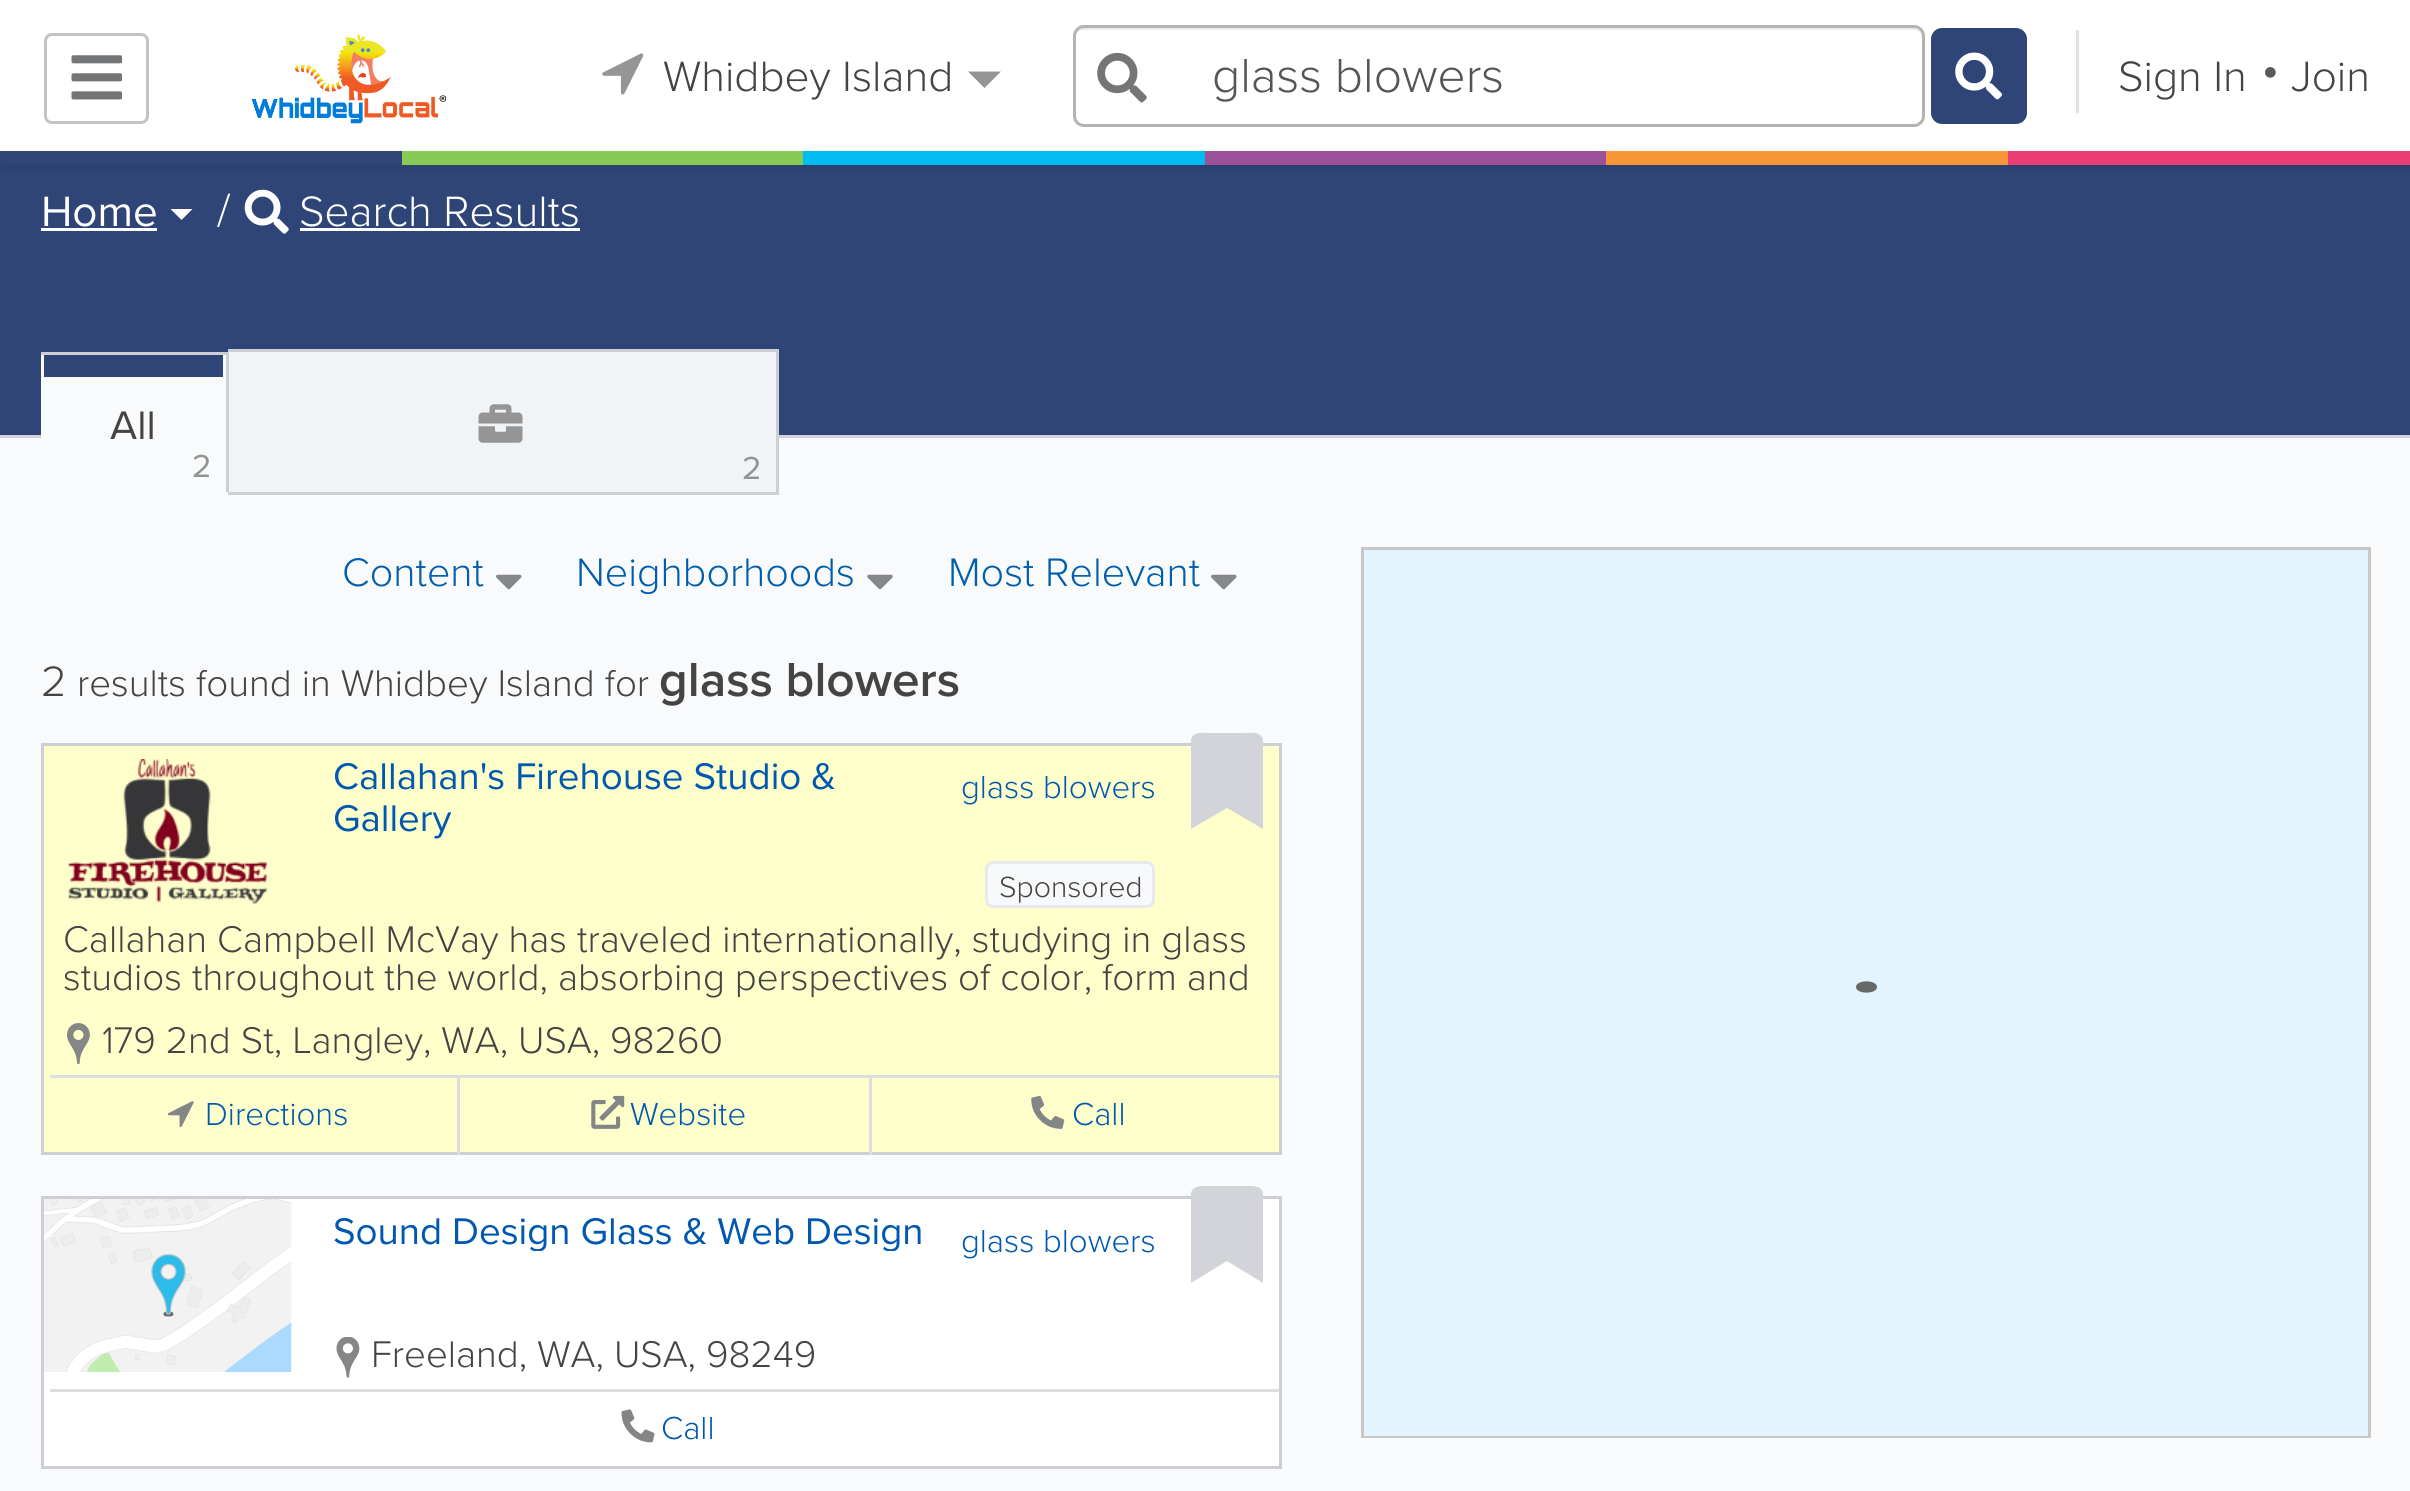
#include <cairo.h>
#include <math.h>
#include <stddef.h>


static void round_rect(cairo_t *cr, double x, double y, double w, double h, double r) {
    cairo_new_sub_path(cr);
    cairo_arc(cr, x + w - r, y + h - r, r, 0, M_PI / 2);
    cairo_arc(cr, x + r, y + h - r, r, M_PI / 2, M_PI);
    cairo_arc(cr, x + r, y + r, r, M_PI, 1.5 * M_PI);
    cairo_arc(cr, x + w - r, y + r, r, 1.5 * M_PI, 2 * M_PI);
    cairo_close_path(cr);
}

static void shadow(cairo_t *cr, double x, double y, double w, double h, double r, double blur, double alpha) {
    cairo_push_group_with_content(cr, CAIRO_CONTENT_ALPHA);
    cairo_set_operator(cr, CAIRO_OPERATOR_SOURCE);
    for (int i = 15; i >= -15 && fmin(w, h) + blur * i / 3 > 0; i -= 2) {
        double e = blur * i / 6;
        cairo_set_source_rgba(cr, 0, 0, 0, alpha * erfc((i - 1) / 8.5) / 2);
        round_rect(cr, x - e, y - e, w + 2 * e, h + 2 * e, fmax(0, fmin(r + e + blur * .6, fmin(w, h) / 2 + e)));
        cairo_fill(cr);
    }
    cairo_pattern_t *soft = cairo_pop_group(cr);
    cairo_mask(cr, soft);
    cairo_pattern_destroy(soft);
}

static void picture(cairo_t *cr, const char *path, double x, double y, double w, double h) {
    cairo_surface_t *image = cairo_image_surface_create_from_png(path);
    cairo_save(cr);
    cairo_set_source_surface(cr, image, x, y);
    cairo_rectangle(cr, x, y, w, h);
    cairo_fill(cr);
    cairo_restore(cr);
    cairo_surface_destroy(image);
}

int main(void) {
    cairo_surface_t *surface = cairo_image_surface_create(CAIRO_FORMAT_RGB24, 2410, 1491);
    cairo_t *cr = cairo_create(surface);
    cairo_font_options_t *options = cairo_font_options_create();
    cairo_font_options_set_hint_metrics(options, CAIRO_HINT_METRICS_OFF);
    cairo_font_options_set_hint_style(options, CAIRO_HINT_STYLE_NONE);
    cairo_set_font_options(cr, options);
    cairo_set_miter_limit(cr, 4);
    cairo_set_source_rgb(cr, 0.976, 0.98, 0.988);
    cairo_paint(cr);
    cairo_set_source_rgb(cr, 1, 1, 1);
    cairo_rectangle(cr, 0, 0, 2410, 151);
    cairo_fill(cr);
    round_rect(cr, 45.5, 34.5, 102, 88, 6.5);
    cairo_set_source_rgb(cr, 0.761, 0.765, 0.769);
    cairo_set_line_width(cr, 3);
    cairo_stroke(cr);
    picture(cr, "img1.png", 71, 55, 52, 45);
    picture(cr, "img2.png", 251, 34, 196, 90);
    picture(cr, "img3.png", 602, 53, 42, 42);
    cairo_select_font_face(cr, "Proxima Nova Light", CAIRO_FONT_SLANT_NORMAL, CAIRO_FONT_WEIGHT_NORMAL);
    cairo_set_font_size(cr, 44);
    cairo_set_source_rgb(cr, 0.267, 0.267, 0.267);
    cairo_move_to(cr, 663, 91);
    cairo_show_text(cr, "Whidbey Island");
    cairo_set_source_rgb(cr, 0.584, 0.584, 0.584);
    cairo_new_path(cr);
    cairo_move_to(cr, 968, 71.5);
    cairo_line_to(cr, 1001, 71.5);
    cairo_line_to(cr, 984.5, 88);
    cairo_close_path(cr);
    cairo_fill(cr);
    cairo_set_source_rgb(cr, 0.925, 0.925, 0.925);
    cairo_new_path(cr);
    cairo_move_to(cr, 1084, 30);
    cairo_line_to(cr, 1914, 30);
    cairo_curve_to(cr, 1919, 30, 1922, 34, 1922, 38);
    cairo_line_to(cr, 1922, 36);
    cairo_curve_to(cr, 1922, 32, 1918, 28, 1914, 28);
    cairo_line_to(cr, 1083, 28);
    cairo_curve_to(cr, 1079, 28, 1075, 32, 1075, 36);
    cairo_line_to(cr, 1075, 38);
    cairo_curve_to(cr, 1075, 34, 1079, 30, 1084, 30);
    cairo_close_path(cr);
    cairo_fill(cr);
    round_rect(cr, 1074.5, 26.5, 849, 99, 9.5);
    cairo_set_source_rgb(cr, 0.702, 0.702, 0.702);
    cairo_stroke(cr);
    picture(cr, "img4.png", 1097, 52, 50, 51);
    cairo_set_font_size(cr, 49.5);
    cairo_set_source_rgb(cr, 0.333, 0.333, 0.333);
    cairo_move_to(cr, 1212, 92);
    cairo_show_text(cr, "glass blowers");
    cairo_set_source_rgb(cr, 0.184, 0.271, 0.467);
    round_rect(cr, 1932.5, 29.5, 93, 93, 9.5);
    cairo_fill_preserve(cr);
    cairo_stroke(cr);
    picture(cr, "img5.png", 1955, 52, 47, 48);
    cairo_set_source_rgb(cr, 0.875, 0.878, 0.894);
    cairo_rectangle(cr, 2076, 30, 3, 83);
    cairo_fill(cr);
    cairo_set_font_size(cr, 44);
    cairo_set_source_rgb(cr, 0.267, 0.267, 0.267);
    cairo_move_to(cr, 2118, 91);
    cairo_show_text(cr, "Sign In");
    cairo_set_font_size(cr, 52);
    cairo_set_source_rgb(cr, 0.345, 0.357, 0.365);
    cairo_move_to(cr, 2261, 85);
    cairo_show_text(cr, "•");
    cairo_set_font_size(cr, 44);
    cairo_set_source_rgb(cr, 0.267, 0.267, 0.267);
    cairo_move_to(cr, 2291, 91);
    cairo_show_text(cr, "Join");
    cairo_set_source_rgb(cr, 0.184, 0.271, 0.467);
    cairo_rectangle(cr, 0, 165, 2410, 270);
    cairo_fill(cr);
    cairo_set_source_rgb(cr, 0, 0, 0);
    shadow(cr, 0, 154, 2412, 14, 0, 3, 0.1);
    cairo_set_source_rgb(cr, 0.922, 0.243, 0.463);
    cairo_rectangle(cr, 2008, 151, 402, 14);
    cairo_fill(cr);
    cairo_set_source_rgb(cr, 0.184, 0.271, 0.467);
    cairo_rectangle(cr, 0, 151, 402, 14);
    cairo_fill(cr);
    cairo_set_source_rgb(cr, 0.529, 0.792, 0.337);
    cairo_rectangle(cr, 402, 151, 401, 14);
    cairo_fill(cr);
    cairo_set_source_rgb(cr, 0, 0.737, 0.945);
    cairo_rectangle(cr, 803, 151, 402, 14);
    cairo_fill(cr);
    cairo_set_source_rgb(cr, 0.612, 0.322, 0.604);
    cairo_rectangle(cr, 1205, 151, 401, 14);
    cairo_fill(cr);
    cairo_set_source_rgb(cr, 0.965, 0.592, 0.227);
    cairo_rectangle(cr, 1606, 151, 402, 14);
    cairo_fill(cr);
    cairo_set_source_rgb(cr, 0.82, 0.827, 0.847);
    cairo_rectangle(cr, 0, 435, 2410, 3);
    cairo_fill(cr);
    cairo_select_font_face(cr, "Proxima Nova", CAIRO_FONT_SLANT_NORMAL, CAIRO_FONT_WEIGHT_NORMAL);
    cairo_set_source_rgb(cr, 1, 1, 1);
    cairo_move_to(cr, 41, 226);
    cairo_show_text(cr, "Home");
    cairo_rectangle(cr, 41, 228, 116, 3);
    cairo_fill(cr);
    cairo_new_path(cr);
    cairo_move_to(cr, 170.5, 209);
    cairo_line_to(cr, 192.5, 209);
    cairo_line_to(cr, 181.5, 220);
    cairo_close_path(cr);
    cairo_fill(cr);
    cairo_select_font_face(cr, "Proxima Nova Light", CAIRO_FONT_SLANT_NORMAL, CAIRO_FONT_WEIGHT_NORMAL);
    cairo_set_font_size(cr, 47);
    cairo_move_to(cr, 217, 226);
    cairo_show_text(cr, "/");
    picture(cr, "img6.png", 244, 189, 45, 45);
    cairo_set_font_size(cr, 44);
    cairo_move_to(cr, 299, 226);
    cairo_show_text(cr, "Search Results");
    cairo_rectangle(cr, 300, 228, 280, 3);
    cairo_fill(cr);
    cairo_set_source_rgb(cr, 0.976, 0.98, 0.988);
    cairo_rectangle(cr, 41, 355, 185, 83);
    cairo_fill(cr);
    cairo_set_source_rgb(cr, 0.804, 0.812, 0.835);
    cairo_rectangle(cr, 41, 352, 187, 3);
    cairo_fill(cr);
    cairo_rectangle(cr, 228, 349, 550, 3);
    cairo_fill(cr);
    cairo_rectangle(cr, 776, 349, 3, 146);
    cairo_fill(cr);
    cairo_rectangle(cr, 228, 492, 550, 3);
    cairo_fill(cr);
    cairo_rectangle(cr, 226, 352, 3, 143);
    cairo_fill(cr);
    cairo_set_source_rgb(cr, 0.976, 0.98, 0.988);
    cairo_rectangle(cr, 226, 492, 2, 3);
    cairo_fill(cr);
    cairo_set_source_rgb(cr, 0.184, 0.271, 0.467);
    cairo_rectangle(cr, 44, 355, 179, 22);
    cairo_fill(cr);
    cairo_select_font_face(cr, "Proxima Nova", CAIRO_FONT_SLANT_NORMAL, CAIRO_FONT_WEIGHT_NORMAL);
    cairo_set_font_size(cr, 41.25);
    cairo_set_source_rgb(cr, 0.267, 0.267, 0.267);
    cairo_move_to(cr, 110, 439);
    cairo_show_text(cr, "All");
    cairo_set_font_size(cr, 33);
    cairo_set_source_rgb(cr, 0.573, 0.576, 0.576);
    cairo_move_to(cr, 192, 477);
    cairo_show_text(cr, "2");
    cairo_set_source_rgb(cr, 0.941, 0.957, 0.961);
    cairo_rectangle(cr, 229, 352, 547, 140);
    cairo_fill(cr);
    picture(cr, "img7.png", 478, 404, 45, 39);
    cairo_set_source_rgb(cr, 0.573, 0.576, 0.576);
    cairo_move_to(cr, 742, 479);
    cairo_show_text(cr, "2");
    cairo_select_font_face(cr, "Proxima Nova Light", CAIRO_FONT_SLANT_NORMAL, CAIRO_FONT_WEIGHT_NORMAL);
    cairo_set_font_size(cr, 41.25);
    cairo_set_source_rgb(cr, 0, 0.369, 0.682);
    cairo_move_to(cr, 342, 586);
    cairo_show_text(cr, "Content");
    picture(cr, "img8.png", 496, 574, 26, 16);
    cairo_move_to(cr, 576, 586);
    cairo_show_text(cr, "Neighborhoods");
    picture(cr, "img9.png", 867, 574, 26, 16);
    cairo_move_to(cr, 948, 586);
    cairo_show_text(cr, "Most Relevant");
    picture(cr, "img8.png", 1211, 574, 26, 16);
    cairo_set_font_size(cr, 44);
    cairo_set_source_rgb(cr, 0.267, 0.267, 0.267);
    cairo_move_to(cr, 41, 696);
    cairo_show_text(cr, "2");
    cairo_set_font_size(cr, 38.5);
    cairo_move_to(cr, 77, 696);
    cairo_show_text(cr, "results found in Whidbey Island for");
    cairo_select_font_face(cr, "Proxima Nova SemiBold", CAIRO_FONT_SLANT_NORMAL, CAIRO_FONT_WEIGHT_NORMAL);
    cairo_set_font_size(cr, 49.5);
    cairo_move_to(cr, 659, 696);
    cairo_show_text(cr, "glass blowers");
    cairo_set_source_rgb(cr, 1, 1, 0.8);
    cairo_rectangle(cr, 42.5, 744.5, 1238, 409);
    cairo_fill_preserve(cr);
    cairo_set_source_rgb(cr, 0.804, 0.812, 0.835);
    cairo_stroke(cr);
    picture(cr, "img10.png", 68, 759, 199, 145);
    cairo_select_font_face(cr, "Proxima Nova", CAIRO_FONT_SLANT_NORMAL, CAIRO_FONT_WEIGHT_NORMAL);
    cairo_set_font_size(cr, 38.5);
    cairo_set_source_rgb(cr, 0.004, 0.345, 0.69);
    cairo_move_to(cr, 333, 789);
    cairo_show_text(cr, "Callahan's Firehouse Studio &");
    cairo_move_to(cr, 333, 831);
    cairo_show_text(cr, "Gallery");
    cairo_select_font_face(cr, "Proxima Nova Light", CAIRO_FONT_SLANT_NORMAL, CAIRO_FONT_WEIGHT_NORMAL);
    cairo_set_font_size(cr, 33);
    cairo_move_to(cr, 961, 798);
    cairo_show_text(cr, "glass blowers");
    cairo_set_source_rgb(cr, 0.824, 0.831, 0.851);
    cairo_new_path(cr);
    cairo_move_to(cr, 1191, 829);
    cairo_line_to(cr, 1191, 740);
    cairo_curve_to(cr, 1193, 731, 1202, 733, 1209, 733);
    cairo_line_to(cr, 1245, 733);
    cairo_curve_to(cr, 1251, 733, 1261, 731, 1263, 740);
    cairo_line_to(cr, 1263, 829);
    cairo_line_to(cr, 1227, 808);
    cairo_close_path(cr);
    cairo_fill(cr);
    cairo_set_source_rgb(cr, 0.965, 0.976, 0.98);
    round_rect(cr, 986.5, 862.5, 167, 44, 6.5);
    cairo_fill_preserve(cr);
    cairo_set_source_rgb(cr, 0.906, 0.914, 0.925);
    cairo_stroke(cr);
    cairo_set_font_size(cr, 30.25);
    cairo_set_source_rgb(cr, 0.267, 0.267, 0.267);
    cairo_move_to(cr, 999, 897);
    cairo_show_text(cr, "Sponsored");
    cairo_set_font_size(cr, 38.5);
    cairo_move_to(cr, 63, 952);
    cairo_show_text(cr, "Callahan Campbell McVay has traveled internationally, studying in glass");
    cairo_move_to(cr, 63, 990);
    cairo_show_text(cr, "studios throughout the world, absorbing perspectives of color, form and");
    picture(cr, "img11.png", 67, 1023, 23, 41);
    cairo_move_to(cr, 102, 1053);
    cairo_show_text(cr, "179 2nd St, Langley, WA, USA, 98260");
    cairo_set_source_rgb(cr, 0.867, 0.871, 0.875);
    cairo_rectangle(cr, 50, 1075, 1229, 3);
    cairo_fill(cr);
    picture(cr, "img12.png", 167, 1101, 27, 27);
    cairo_set_font_size(cr, 33);
    cairo_set_source_rgb(cr, 0.004, 0.345, 0.69);
    cairo_move_to(cr, 205, 1125);
    cairo_show_text(cr, "Directions");
    cairo_set_source_rgb(cr, 0.867, 0.871, 0.875);
    cairo_rectangle(cr, 457, 1078, 3, 77);
    cairo_fill(cr);
    picture(cr, "img13.png", 591, 1095, 34, 34);
    cairo_set_source_rgb(cr, 0.004, 0.345, 0.69);
    cairo_move_to(cr, 630, 1125);
    cairo_show_text(cr, "Website");
    cairo_set_source_rgb(cr, 0.867, 0.871, 0.875);
    cairo_rectangle(cr, 869, 1078, 3, 77);
    cairo_fill(cr);
    picture(cr, "img14.png", 1031, 1095, 34, 34);
    cairo_set_source_rgb(cr, 0.004, 0.345, 0.69);
    cairo_move_to(cr, 1072, 1125);
    cairo_show_text(cr, "Call");
    cairo_set_source_rgb(cr, 1, 1, 1);
    cairo_rectangle(cr, 42.5, 1197.5, 1238, 270);
    cairo_fill_preserve(cr);
    cairo_set_source_rgb(cr, 0.804, 0.812, 0.835);
    cairo_stroke(cr);
    picture(cr, "img15.png", 44, 1199, 248, 174);
    cairo_save(cr);
    cairo_rectangle(cr, 333, 1210, 630, 41);
    cairo_clip(cr);
    cairo_select_font_face(cr, "Proxima Nova", CAIRO_FONT_SLANT_NORMAL, CAIRO_FONT_WEIGHT_NORMAL);
    cairo_set_font_size(cr, 38.5);
    cairo_set_source_rgb(cr, 0.004, 0.345, 0.69);
    cairo_move_to(cr, 333, 1244);
    cairo_show_text(cr, "Sound Design Glass & Web Design");
    cairo_restore(cr);
    cairo_set_source_rgb(cr, 0.004, 0.345, 0.69);
    cairo_move_to(cr, 961, 1252);
    cairo_show_text(cr, "glass blowers");
    cairo_set_source_rgb(cr, 0.824, 0.831, 0.851);
    cairo_new_path(cr);
    cairo_move_to(cr, 1191, 1283);
    cairo_line_to(cr, 1191, 1193);
    cairo_curve_to(cr, 1193, 1185, 1202, 1186, 1209, 1186);
    cairo_line_to(cr, 1245, 1186);
    cairo_curve_to(cr, 1251, 1186, 1261, 1185, 1263, 1193);
    cairo_line_to(cr, 1263, 1283);
    cairo_line_to(cr, 1227, 1261);
    cairo_close_path(cr);
    cairo_fill(cr);
    picture(cr, "img16.png", 336, 1337, 24, 41);
    cairo_set_font_size(cr, 38.5);
    cairo_set_source_rgb(cr, 0.267, 0.267, 0.267);
    cairo_move_to(cr, 371, 1367);
    cairo_show_text(cr, "Freeland, WA, USA, 98249");
    cairo_set_source_rgb(cr, 0.867, 0.871, 0.875);
    cairo_rectangle(cr, 50, 1389, 1229, 3);
    cairo_fill(cr);
    picture(cr, "img17.png", 621, 1409, 34, 34);
    cairo_set_font_size(cr, 33);
    cairo_set_source_rgb(cr, 0.004, 0.345, 0.69);
    cairo_move_to(cr, 661, 1439);
    cairo_show_text(cr, "Call");
    cairo_rectangle(cr, 1362.5, 548.5, 1007, 888);
    cairo_set_source_rgb(cr, 0.78, 0.78, 0.78);
    cairo_stroke(cr);
    cairo_set_source_rgb(cr, 0.886, 0.957, 0.992);
    cairo_rectangle(cr, 1364, 550, 1004, 886);
    cairo_fill(cr);
    cairo_set_source_rgb(cr, 0.404, 0.408, 0.408);
    cairo_new_path(cr);
    cairo_move_to(cr, 1877, 987);
    cairo_curve_to(cr, 1877, 994.5, 1856, 994.5, 1856, 987);
    cairo_curve_to(cr, 1856, 979.5, 1877, 979.5, 1877, 987);
    cairo_fill(cr);
    cairo_surface_write_to_png(surface, "page.png");
    cairo_font_options_destroy(options);
    cairo_destroy(cr);
    cairo_surface_destroy(surface);
    return 0;
}
